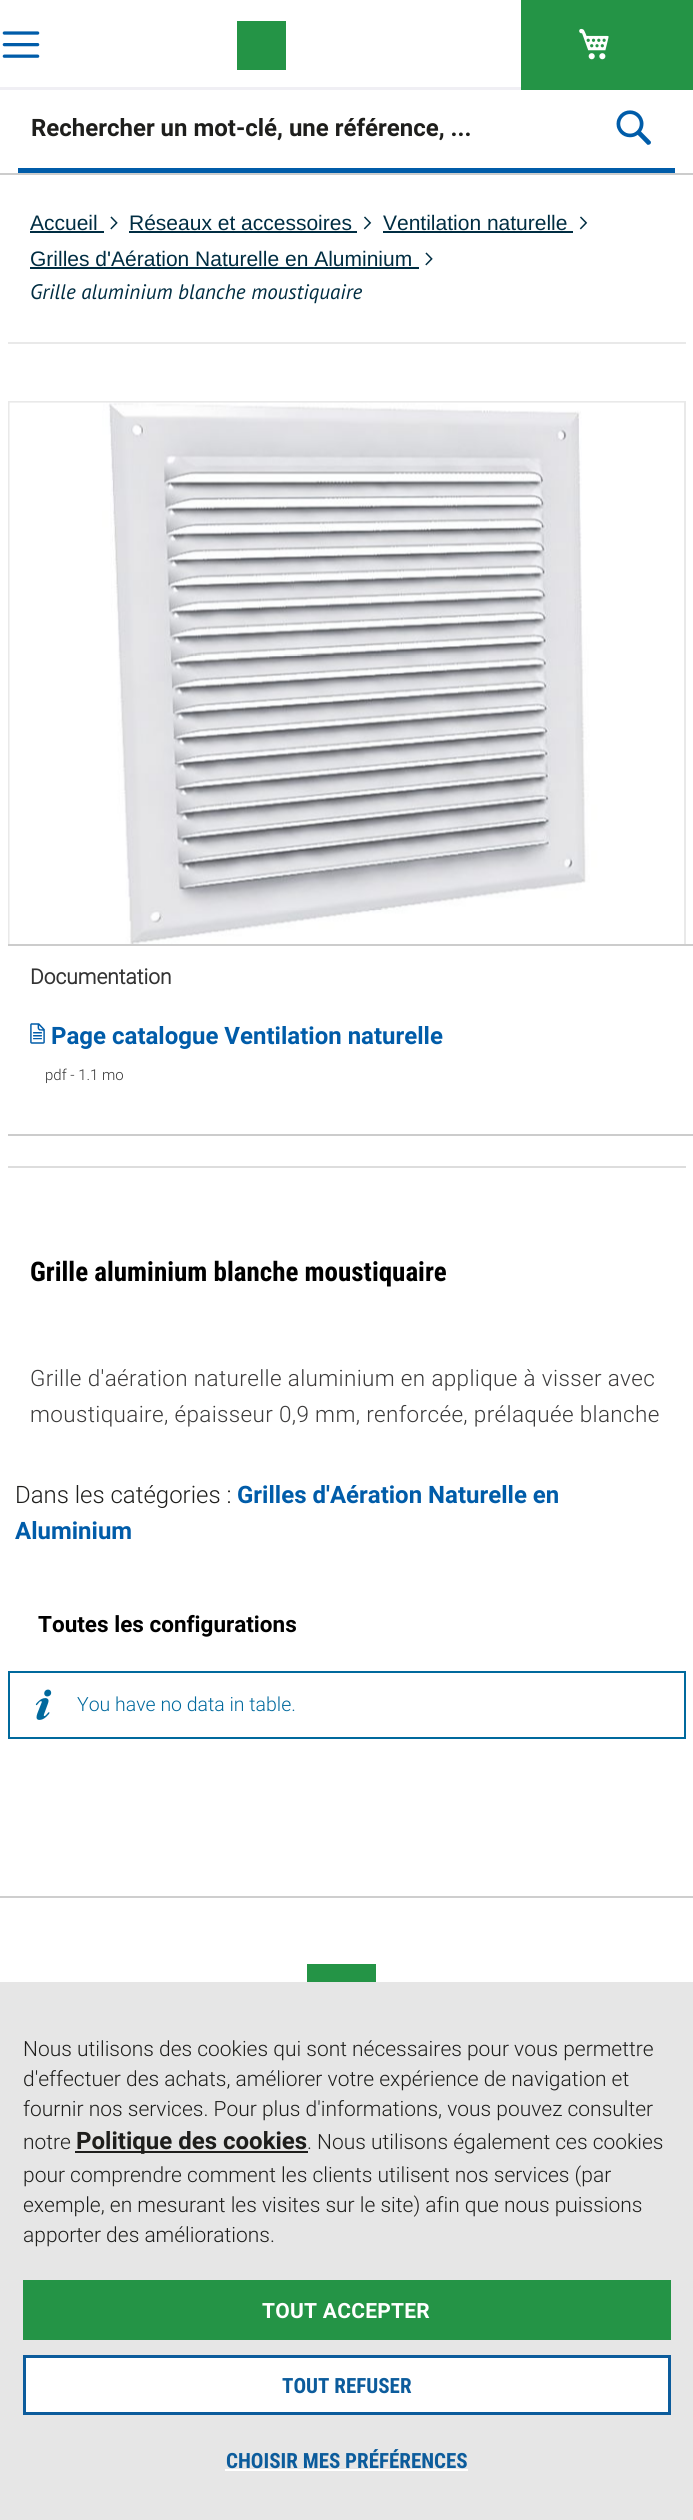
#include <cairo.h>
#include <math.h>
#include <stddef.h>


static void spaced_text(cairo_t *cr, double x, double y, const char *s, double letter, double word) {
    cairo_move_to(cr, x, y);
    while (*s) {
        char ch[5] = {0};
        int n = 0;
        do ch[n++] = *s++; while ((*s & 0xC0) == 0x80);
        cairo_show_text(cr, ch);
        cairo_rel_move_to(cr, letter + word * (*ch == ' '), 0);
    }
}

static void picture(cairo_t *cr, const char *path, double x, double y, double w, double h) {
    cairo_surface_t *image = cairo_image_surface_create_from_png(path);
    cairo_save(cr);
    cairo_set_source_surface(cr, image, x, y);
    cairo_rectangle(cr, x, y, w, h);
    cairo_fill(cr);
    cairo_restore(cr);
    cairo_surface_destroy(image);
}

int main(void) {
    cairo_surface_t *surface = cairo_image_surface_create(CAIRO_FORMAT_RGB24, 693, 2520);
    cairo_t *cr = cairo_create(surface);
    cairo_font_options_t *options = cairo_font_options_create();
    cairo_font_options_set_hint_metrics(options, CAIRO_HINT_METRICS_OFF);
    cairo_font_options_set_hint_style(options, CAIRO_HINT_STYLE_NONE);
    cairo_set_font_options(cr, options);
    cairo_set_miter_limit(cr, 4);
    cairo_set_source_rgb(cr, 1, 1, 1);
    cairo_paint(cr);
    cairo_set_source_rgb(cr, 0.8, 0.8, 0.8);
    cairo_rectangle(cr, 0, 173, 693, 2);
    cairo_fill(cr);
    cairo_set_source_rgb(cr, 0.941, 0.937, 0.957);
    cairo_rectangle(cr, 0, 87, 521, 3);
    cairo_fill(cr);
    cairo_set_source_rgb(cr, 0.141, 0.58, 0.275);
    cairo_rectangle(cr, 521, 0, 172, 90);
    cairo_fill(cr);
    picture(cr, "img1.png", 579, 28, 30, 32);
    picture(cr, "img2.png", 2, 31, 38, 27);
    cairo_rectangle(cr, 237, 21, 49, 49);
    cairo_fill(cr);
    cairo_set_source_rgb(cr, 0, 0.361, 0.663);
    cairo_rectangle(cr, 18, 168, 657, 5);
    cairo_fill(cr);
    cairo_select_font_face(cr, "Roboto", CAIRO_FONT_SLANT_NORMAL, CAIRO_FONT_WEIGHT_BOLD);
    cairo_set_font_size(cr, 24);
    cairo_set_source_rgb(cr, 0.118, 0.118, 0.11);
    cairo_move_to(cr, 31, 136);
    cairo_show_text(cr, "Rechercher un mot-clé, une référence, ...");
    picture(cr, "img3.png", 616, 110, 35, 35);
    cairo_select_font_face(cr, "Liberation Sans", CAIRO_FONT_SLANT_NORMAL, CAIRO_FONT_WEIGHT_NORMAL);
    cairo_set_font_size(cr, 21);
    cairo_set_source_rgb(cr, 0, 0.176, 0.259);
    cairo_move_to(cr, 30, 230);
    cairo_show_text(cr, "Accueil");
    cairo_rectangle(cr, 30, 231, 74, 2);
    cairo_fill(cr);
    picture(cr, "img4.png", 110, 216, 8, 14);
    cairo_move_to(cr, 129, 230);
    cairo_show_text(cr, "Réseaux et accessoires");
    cairo_rectangle(cr, 129, 231, 228, 2);
    cairo_fill(cr);
    picture(cr, "img5.png", 363, 216, 9, 14);
    cairo_move_to(cr, 383, 230);
    cairo_show_text(cr, "Ventilation naturelle");
    cairo_rectangle(cr, 383, 231, 190, 2);
    cairo_fill(cr);
    picture(cr, "img5.png", 579, 216, 9, 14);
    cairo_move_to(cr, 30, 266);
    cairo_show_text(cr, "Grilles d'Aération Naturelle en Aluminium");
    cairo_rectangle(cr, 30, 267, 389, 2);
    cairo_fill(cr);
    picture(cr, "img4.png", 425, 252, 8, 14);
    cairo_select_font_face(cr, "PT Sans", CAIRO_FONT_SLANT_ITALIC, CAIRO_FONT_WEIGHT_NORMAL);
    cairo_move_to(cr, 30, 299);
    cairo_show_text(cr, "Grille aluminium blanche moustiquaire");
    cairo_set_source_rgb(cr, 0.914, 0.914, 0.914);
    cairo_rectangle(cr, 8, 342, 678, 2);
    cairo_fill(cr);
    cairo_rectangle(cr, 8, 401, 678, 2);
    cairo_fill(cr);
    cairo_rectangle(cr, 684, 401, 2, 543);
    cairo_fill(cr);
    cairo_rectangle(cr, 8, 401, 2, 543);
    cairo_fill(cr);
    picture(cr, "img6.png", 9, 402, 675, 542);
    cairo_set_source_rgb(cr, 0.8, 0.8, 0.8);
    cairo_rectangle(cr, 8, 1134, 685, 2);
    cairo_fill(cr);
    cairo_rectangle(cr, 8, 944, 685, 2);
    cairo_fill(cr);
    cairo_select_font_face(cr, "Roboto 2", CAIRO_FONT_SLANT_NORMAL, CAIRO_FONT_WEIGHT_BOLD);
    cairo_set_source_rgb(cr, 0.2, 0.2, 0.2);
    cairo_move_to(cr, 30, 984);
    cairo_show_text(cr, "Documentation");
    picture(cr, "img7.png", 30, 1023, 15, 21);
    cairo_select_font_face(cr, "Roboto", CAIRO_FONT_SLANT_NORMAL, CAIRO_FONT_WEIGHT_BOLD);
    cairo_set_font_size(cr, 24);
    cairo_set_source_rgb(cr, 0, 0.361, 0.663);
    cairo_move_to(cr, 51, 1044);
    cairo_show_text(cr, "Page catalogue Ventilation naturelle");
    cairo_select_font_face(cr, "Roboto Light", CAIRO_FONT_SLANT_NORMAL, CAIRO_FONT_WEIGHT_NORMAL);
    cairo_set_font_size(cr, 15);
    cairo_set_source_rgb(cr, 0.2, 0.2, 0.2);
    cairo_move_to(cr, 45, 1080);
    cairo_show_text(cr, "pdf - 1.1 mo");
    cairo_set_source_rgb(cr, 0.867, 0.867, 0.867);
    cairo_rectangle(cr, 8, 1166, 678, 2);
    cairo_fill(cr);
    cairo_select_font_face(cr, "Roboto Condensed", CAIRO_FONT_SLANT_NORMAL, CAIRO_FONT_WEIGHT_BOLD);
    cairo_set_font_size(cr, 27);
    cairo_set_source_rgb(cr, 0, 0, 0);
    cairo_move_to(cr, 30, 1281);
    cairo_show_text(cr, "Grille aluminium blanche moustiquaire");
    cairo_select_font_face(cr, "Roboto Light", CAIRO_FONT_SLANT_NORMAL, CAIRO_FONT_WEIGHT_NORMAL);
    cairo_set_font_size(cr, 22.5);
    cairo_set_source_rgb(cr, 0.235, 0.231, 0.231);
    spaced_text(cr, 30, 1386, "Grille d'aération naturelle aluminium en applique à visser avec", 0.35, 0);
    spaced_text(cr, 30, 1422, "moustiquaire, épaisseur 0,9 mm, renforcée, prélaquée blanche", 0.35, 0);
    cairo_set_font_size(cr, 24);
    cairo_set_source_rgb(cr, 0.118, 0.118, 0.11);
    cairo_move_to(cr, 15, 1503);
    cairo_show_text(cr, "Dans les catégories :");
    cairo_select_font_face(cr, "Roboto", CAIRO_FONT_SLANT_NORMAL, CAIRO_FONT_WEIGHT_BOLD);
    cairo_set_source_rgb(cr, 0, 0.361, 0.663);
    cairo_move_to(cr, 237, 1503);
    cairo_show_text(cr, "Grilles d'Aération Naturelle en");
    cairo_move_to(cr, 15, 1539);
    cairo_show_text(cr, "Aluminium");
    cairo_set_font_size(cr, 22.5);
    cairo_set_source_rgb(cr, 0, 0, 0);
    cairo_move_to(cr, 38, 1632);
    cairo_show_text(cr, "Toutes les configurations");
    cairo_rectangle(cr, 9, 1672, 676, 66);
    cairo_set_source_rgb(cr, 0, 0.412, 0.616);
    cairo_stroke(cr);
    picture(cr, "img8.png", 35, 1689, 17, 31);
    cairo_select_font_face(cr, "Roboto Light", CAIRO_FONT_SLANT_NORMAL, CAIRO_FONT_WEIGHT_NORMAL);
    cairo_set_font_size(cr, 19.5);
    cairo_move_to(cr, 77, 1711);
    cairo_show_text(cr, "You have no data in table.");
    cairo_set_source_rgb(cr, 0.808, 0.808, 0.808);
    cairo_rectangle(cr, 0, 1896, 693, 2);
    cairo_fill(cr);
    cairo_set_source_rgb(cr, 0.141, 0.58, 0.275);
    cairo_rectangle(cr, 307, 1964, 69, 18);
    cairo_fill(cr);
    cairo_set_source_rgb(cr, 0.902, 0.902, 0.902);
    cairo_rectangle(cr, 0, 1982, 693, 538);
    cairo_fill(cr);
    cairo_set_font_size(cr, 21);
    cairo_set_source_rgb(cr, 0.118, 0.118, 0.11);
    cairo_move_to(cr, 23, 2056);
    cairo_show_text(cr, "Nous utilisons des cookies qui sont nécessaires pour vous permettre");
    cairo_move_to(cr, 23, 2086);
    cairo_show_text(cr, "d'effectuer des achats, améliorer votre expérience de navigation et");
    cairo_move_to(cr, 23, 2116);
    cairo_show_text(cr, "fournir nos services. Pour plus d'informations, vous pouvez consulter");
    cairo_move_to(cr, 23, 2149);
    cairo_show_text(cr, "notre");
    cairo_rectangle(cr, 75, 2151, 233, 2);
    cairo_fill(cr);
    cairo_select_font_face(cr, "Roboto", CAIRO_FONT_SLANT_NORMAL, CAIRO_FONT_WEIGHT_BOLD);
    cairo_set_font_size(cr, 24);
    cairo_move_to(cr, 76, 2149);
    cairo_show_text(cr, "Politique des cookies");
    cairo_select_font_face(cr, "Roboto Light", CAIRO_FONT_SLANT_NORMAL, CAIRO_FONT_WEIGHT_NORMAL);
    cairo_set_font_size(cr, 21);
    cairo_move_to(cr, 307, 2149);
    cairo_show_text(cr, ". Nous utilisons également ces cookies");
    cairo_move_to(cr, 23, 2182);
    cairo_show_text(cr, "pour comprendre comment les clients utilisent nos services (par");
    cairo_move_to(cr, 23, 2212);
    cairo_show_text(cr, "exemple, en mesurant les visites sur le site) afin que nous puissions");
    cairo_move_to(cr, 23, 2242);
    cairo_show_text(cr, "apporter des améliorations.");
    cairo_set_source_rgb(cr, 0.141, 0.58, 0.275);
    cairo_rectangle(cr, 23, 2280, 648, 60);
    cairo_fill(cr);
    cairo_select_font_face(cr, "Roboto", CAIRO_FONT_SLANT_NORMAL, CAIRO_FONT_WEIGHT_BOLD);
    cairo_set_source_rgb(cr, 1, 1, 1);
    spaced_text(cr, 262, 2318, "TOUT ACCEPTER", 0.25, 0);
    cairo_rectangle(cr, 24.5, 2356.5, 645, 57);
    cairo_fill_preserve(cr);
    cairo_set_source_rgb(cr, 0.047, 0.361, 0.612);
    cairo_set_line_width(cr, 3);
    cairo_stroke(cr);
    cairo_select_font_face(cr, "Roboto Condensed", CAIRO_FONT_SLANT_NORMAL, CAIRO_FONT_WEIGHT_BOLD);
    cairo_move_to(cr, 282, 2393);
    cairo_show_text(cr, "TOUT REFUSER");
    cairo_move_to(cr, 226, 2468);
    cairo_show_text(cr, "CHOISIR MES PRÉFÉRENCES");
    cairo_set_source_rgb(cr, 1, 1, 1);
    cairo_rectangle(cr, 225, 2469, 243, 2);
    cairo_fill(cr);
    cairo_surface_write_to_png(surface, "page.png");
    cairo_font_options_destroy(options);
    cairo_destroy(cr);
    cairo_surface_destroy(surface);
    return 0;
}
